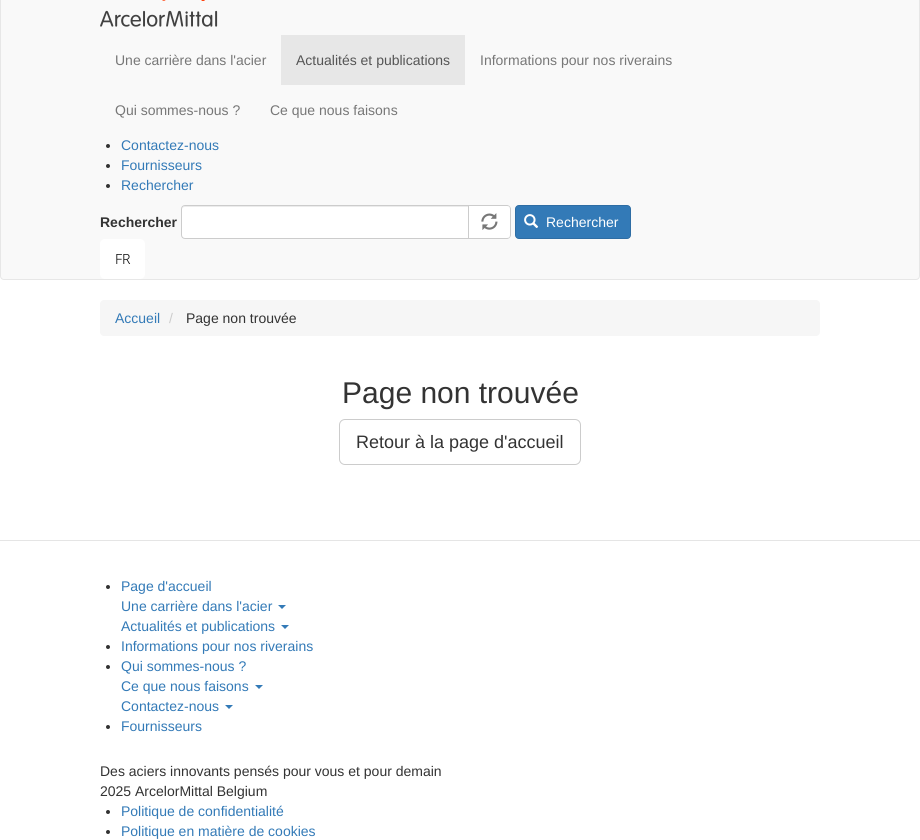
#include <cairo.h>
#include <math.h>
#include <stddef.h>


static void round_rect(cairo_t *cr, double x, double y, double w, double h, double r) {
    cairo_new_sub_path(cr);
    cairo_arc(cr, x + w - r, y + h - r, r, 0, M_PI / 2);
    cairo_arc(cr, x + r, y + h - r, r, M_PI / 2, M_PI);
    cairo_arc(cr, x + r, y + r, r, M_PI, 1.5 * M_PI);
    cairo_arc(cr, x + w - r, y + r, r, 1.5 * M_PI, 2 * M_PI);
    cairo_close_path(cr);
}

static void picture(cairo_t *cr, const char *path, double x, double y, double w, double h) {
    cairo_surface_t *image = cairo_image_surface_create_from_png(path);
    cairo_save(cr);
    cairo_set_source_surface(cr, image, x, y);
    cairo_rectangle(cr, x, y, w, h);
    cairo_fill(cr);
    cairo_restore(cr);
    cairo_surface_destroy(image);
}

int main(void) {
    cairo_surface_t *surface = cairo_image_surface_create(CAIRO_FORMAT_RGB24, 920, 840);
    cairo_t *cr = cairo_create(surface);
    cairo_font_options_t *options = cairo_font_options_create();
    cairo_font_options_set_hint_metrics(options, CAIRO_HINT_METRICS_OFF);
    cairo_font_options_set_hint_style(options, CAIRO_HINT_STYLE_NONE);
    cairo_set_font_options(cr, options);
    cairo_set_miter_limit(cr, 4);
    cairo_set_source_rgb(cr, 1, 1, 1);
    cairo_paint(cr);
    cairo_set_source_rgb(cr, 0.973, 0.973, 0.973);
    round_rect(cr, 0.5, -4.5, 919, 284, 3.5);
    cairo_fill_preserve(cr);
    cairo_set_source_rgb(cr, 0.906, 0.906, 0.906);
    cairo_set_line_width(cr, 1);
    cairo_stroke(cr);
    picture(cr, "img1.png", 100, 0, 118, 27);
    cairo_select_font_face(cr, "Liberation Sans", CAIRO_FONT_SLANT_NORMAL, CAIRO_FONT_WEIGHT_NORMAL);
    cairo_set_font_size(cr, 14);
    cairo_set_source_rgb(cr, 0.467, 0.467, 0.467);
    cairo_move_to(cr, 115, 65);
    cairo_show_text(cr, "Une carrière dans l'acier");
    cairo_set_source_rgb(cr, 0.906, 0.906, 0.906);
    cairo_rectangle(cr, 281, 35, 184, 50);
    cairo_fill(cr);
    cairo_set_source_rgb(cr, 0.333, 0.333, 0.333);
    cairo_move_to(cr, 296, 65);
    cairo_show_text(cr, "Actualités et publications");
    cairo_set_source_rgb(cr, 0.467, 0.467, 0.467);
    cairo_move_to(cr, 480, 65);
    cairo_show_text(cr, "Informations pour nos riverains");
    cairo_move_to(cr, 115, 115);
    cairo_show_text(cr, "Qui sommes-nous ?");
    cairo_move_to(cr, 270, 115);
    cairo_show_text(cr, "Ce que nous faisons");
    cairo_set_source_rgb(cr, 0.2, 0.2, 0.2);
    cairo_new_path(cr);
    cairo_arc(cr, 108, 146, 2, 0, 2 * M_PI);
    cairo_fill(cr);
    cairo_set_source_rgb(cr, 0.2, 0.478, 0.718);
    cairo_move_to(cr, 121, 150);
    cairo_show_text(cr, "Contactez-nous");
    cairo_set_source_rgb(cr, 0.2, 0.2, 0.2);
    cairo_new_path(cr);
    cairo_arc(cr, 108, 166, 2, 0, 2 * M_PI);
    cairo_fill(cr);
    cairo_set_source_rgb(cr, 0.2, 0.478, 0.718);
    cairo_move_to(cr, 121, 170);
    cairo_show_text(cr, "Fournisseurs");
    cairo_set_source_rgb(cr, 0.2, 0.2, 0.2);
    cairo_new_path(cr);
    cairo_arc(cr, 108, 186, 2, 0, 2 * M_PI);
    cairo_fill(cr);
    cairo_set_source_rgb(cr, 0.2, 0.478, 0.718);
    cairo_move_to(cr, 121, 190);
    cairo_show_text(cr, "Rechercher");
    cairo_select_font_face(cr, "Liberation Sans", CAIRO_FONT_SLANT_NORMAL, CAIRO_FONT_WEIGHT_BOLD);
    cairo_set_source_rgb(cr, 0.2, 0.2, 0.2);
    cairo_move_to(cr, 100, 227);
    cairo_show_text(cr, "Rechercher");
    cairo_set_source_rgb(cr, 1, 1, 1);
    cairo_new_path(cr);
    cairo_move_to(cr, 185, 205);
    cairo_line_to(cr, 469, 205);
    cairo_line_to(cr, 469, 239);
    cairo_line_to(cr, 185, 239);
    cairo_curve_to(cr, 183, 239, 181, 237, 181, 235);
    cairo_line_to(cr, 181, 209);
    cairo_curve_to(cr, 181, 207, 183, 205, 185, 205);
    cairo_close_path(cr);
    cairo_fill(cr);
    cairo_set_source_rgb(cr, 0.925, 0.925, 0.925);
    cairo_new_path(cr);
    cairo_move_to(cr, 185, 207);
    cairo_line_to(cr, 468, 207);
    cairo_line_to(cr, 468, 206);
    cairo_line_to(cr, 185, 206);
    cairo_curve_to(cr, 183, 206, 182, 208, 182, 210);
    cairo_curve_to(cr, 182, 208, 183, 207, 185, 207);
    cairo_close_path(cr);
    cairo_fill(cr);
    cairo_new_path(cr);
    cairo_move_to(cr, 185, 205.5);
    cairo_line_to(cr, 468.5, 205.5);
    cairo_line_to(cr, 468.5, 238.5);
    cairo_line_to(cr, 185, 238.5);
    cairo_curve_to(cr, 183, 238.5, 181.5, 237, 181.5, 235);
    cairo_line_to(cr, 181.5, 209);
    cairo_curve_to(cr, 181.5, 207, 183, 205.5, 185, 205.5);
    cairo_close_path(cr);
    cairo_set_source_rgb(cr, 0.8, 0.8, 0.8);
    cairo_stroke(cr);
    cairo_set_source_rgb(cr, 1, 1, 1);
    cairo_new_path(cr);
    cairo_move_to(cr, 469, 205);
    cairo_line_to(cr, 507, 205);
    cairo_curve_to(cr, 509, 205, 511, 207, 511, 209);
    cairo_line_to(cr, 511, 235);
    cairo_curve_to(cr, 511, 237, 509, 239, 507, 239);
    cairo_line_to(cr, 469, 239);
    cairo_close_path(cr);
    cairo_fill(cr);
    cairo_set_source_rgb(cr, 0.8, 0.8, 0.8);
    cairo_set_fill_rule(cr, CAIRO_FILL_RULE_EVEN_ODD);
    cairo_new_path(cr);
    cairo_move_to(cr, 469, 205);
    cairo_line_to(cr, 507, 205);
    cairo_curve_to(cr, 509, 205, 511, 207, 511, 209);
    cairo_line_to(cr, 511, 235);
    cairo_curve_to(cr, 511, 237, 509, 239, 507, 239);
    cairo_line_to(cr, 469, 239);
    cairo_close_path(cr);
    cairo_move_to(cr, 469, 206);
    cairo_line_to(cr, 507, 206);
    cairo_curve_to(cr, 509, 206, 510, 207, 510, 209);
    cairo_line_to(cr, 510, 235);
    cairo_curve_to(cr, 510, 237, 509, 238, 507, 238);
    cairo_line_to(cr, 469, 238);
    cairo_close_path(cr);
    cairo_fill(cr);
    picture(cr, "img2.png", 481, 213, 17, 17);
    cairo_set_source_rgb(cr, 0.2, 0.478, 0.718);
    round_rect(cr, 515.5, 205.5, 115, 33, 3.5);
    cairo_fill_preserve(cr);
    cairo_set_source_rgb(cr, 0.18, 0.427, 0.643);
    cairo_stroke(cr);
    picture(cr, "img3.png", 524, 214, 15, 14);
    cairo_select_font_face(cr, "Liberation Sans", CAIRO_FONT_SLANT_NORMAL, CAIRO_FONT_WEIGHT_NORMAL);
    cairo_set_source_rgb(cr, 1, 1, 1);
    cairo_move_to(cr, 546, 227);
    cairo_show_text(cr, "Rechercher");
    round_rect(cr, 100, 239, 45, 40, 5);
    cairo_fill(cr);
    cairo_select_font_face(cr, "Noto Sans Light", CAIRO_FONT_SLANT_NORMAL, CAIRO_FONT_WEIGHT_NORMAL);
    cairo_set_source_rgb(cr, 0, 0, 0);
    cairo_move_to(cr, 115, 264);
    cairo_show_text(cr, "FR");
    cairo_set_source_rgb(cr, 0.961, 0.961, 0.961);
    round_rect(cr, 100, 300, 720, 36, 4);
    cairo_fill(cr);
    cairo_select_font_face(cr, "Liberation Sans", CAIRO_FONT_SLANT_NORMAL, CAIRO_FONT_WEIGHT_NORMAL);
    cairo_set_source_rgb(cr, 0.2, 0.478, 0.718);
    cairo_move_to(cr, 115, 323);
    cairo_show_text(cr, "Accueil");
    cairo_set_source_rgb(cr, 0.8, 0.8, 0.8);
    cairo_move_to(cr, 169, 323);
    cairo_show_text(cr, "/");
    cairo_set_source_rgb(cr, 0.2, 0.2, 0.2);
    cairo_move_to(cr, 186, 323);
    cairo_show_text(cr, "Page non trouvée");
    cairo_set_font_size(cr, 30);
    cairo_move_to(cr, 342, 403);
    cairo_show_text(cr, "Page non trouvée");
    round_rect(cr, 339.5, 419.5, 241, 45, 5.5);
    cairo_set_source_rgb(cr, 0.8, 0.8, 0.8);
    cairo_stroke(cr);
    cairo_set_font_size(cr, 18);
    cairo_set_source_rgb(cr, 0.2, 0.2, 0.2);
    cairo_move_to(cr, 356, 448);
    cairo_show_text(cr, "Retour à la page d'accueil");
    cairo_set_source_rgb(cr, 0.898, 0.898, 0.898);
    cairo_rectangle(cr, 0, 540, 920, 1);
    cairo_fill(cr);
    cairo_set_source_rgb(cr, 0.2, 0.2, 0.2);
    cairo_arc(cr, 108, 587, 2, 0, 2 * M_PI);
    cairo_fill(cr);
    cairo_set_font_size(cr, 14);
    cairo_set_source_rgb(cr, 0.2, 0.478, 0.718);
    cairo_move_to(cr, 121, 591);
    cairo_show_text(cr, "Page d'accueil");
    cairo_move_to(cr, 121, 611);
    cairo_show_text(cr, "Une carrière dans l'acier");
    cairo_set_fill_rule(cr, CAIRO_FILL_RULE_WINDING);
    cairo_new_path(cr);
    cairo_move_to(cr, 278, 605);
    cairo_line_to(cr, 286, 605);
    cairo_line_to(cr, 282, 609);
    cairo_close_path(cr);
    cairo_fill(cr);
    cairo_move_to(cr, 121, 631);
    cairo_show_text(cr, "Actualités et publications");
    cairo_new_path(cr);
    cairo_move_to(cr, 281, 625);
    cairo_line_to(cr, 289, 625);
    cairo_line_to(cr, 285, 629);
    cairo_close_path(cr);
    cairo_fill(cr);
    cairo_set_source_rgb(cr, 0.2, 0.2, 0.2);
    cairo_arc(cr, 108, 647, 2, 0, 2 * M_PI);
    cairo_fill(cr);
    cairo_set_source_rgb(cr, 0.2, 0.478, 0.718);
    cairo_move_to(cr, 121, 651);
    cairo_show_text(cr, "Informations pour nos riverains");
    cairo_set_source_rgb(cr, 0.2, 0.2, 0.2);
    cairo_new_path(cr);
    cairo_arc(cr, 108, 667, 2, 0, 2 * M_PI);
    cairo_fill(cr);
    cairo_set_source_rgb(cr, 0.2, 0.478, 0.718);
    cairo_move_to(cr, 121, 671);
    cairo_show_text(cr, "Qui sommes-nous ?");
    cairo_move_to(cr, 121, 691);
    cairo_show_text(cr, "Ce que nous faisons");
    cairo_new_path(cr);
    cairo_move_to(cr, 255, 685);
    cairo_line_to(cr, 263, 685);
    cairo_line_to(cr, 259, 689);
    cairo_close_path(cr);
    cairo_fill(cr);
    cairo_move_to(cr, 121, 711);
    cairo_show_text(cr, "Contactez-nous");
    cairo_new_path(cr);
    cairo_move_to(cr, 225, 705);
    cairo_line_to(cr, 233, 705);
    cairo_line_to(cr, 229, 709);
    cairo_close_path(cr);
    cairo_fill(cr);
    cairo_set_source_rgb(cr, 0.2, 0.2, 0.2);
    cairo_arc(cr, 108, 727, 2, 0, 2 * M_PI);
    cairo_fill(cr);
    cairo_set_source_rgb(cr, 0.2, 0.478, 0.718);
    cairo_move_to(cr, 121, 731);
    cairo_show_text(cr, "Fournisseurs");
    cairo_set_source_rgb(cr, 0.2, 0.2, 0.2);
    cairo_move_to(cr, 100, 776);
    cairo_show_text(cr, "Des aciers innovants pensés pour vous et pour demain");
    cairo_move_to(cr, 100, 796);
    cairo_show_text(cr, "2025 ArcelorMittal Belgium");
    cairo_new_path(cr);
    cairo_arc(cr, 108, 812, 2, 0, 2 * M_PI);
    cairo_fill(cr);
    cairo_set_source_rgb(cr, 0.2, 0.478, 0.718);
    cairo_move_to(cr, 121, 816);
    cairo_show_text(cr, "Politique de confidentialité");
    cairo_set_source_rgb(cr, 0.2, 0.2, 0.2);
    cairo_new_path(cr);
    cairo_arc(cr, 108, 832, 2, 0, 2 * M_PI);
    cairo_fill(cr);
    cairo_set_source_rgb(cr, 0.2, 0.478, 0.718);
    cairo_move_to(cr, 121, 836);
    cairo_show_text(cr, "Politique en matière de cookies");
    cairo_surface_write_to_png(surface, "page.png");
    cairo_font_options_destroy(options);
    cairo_destroy(cr);
    cairo_surface_destroy(surface);
    return 0;
}
